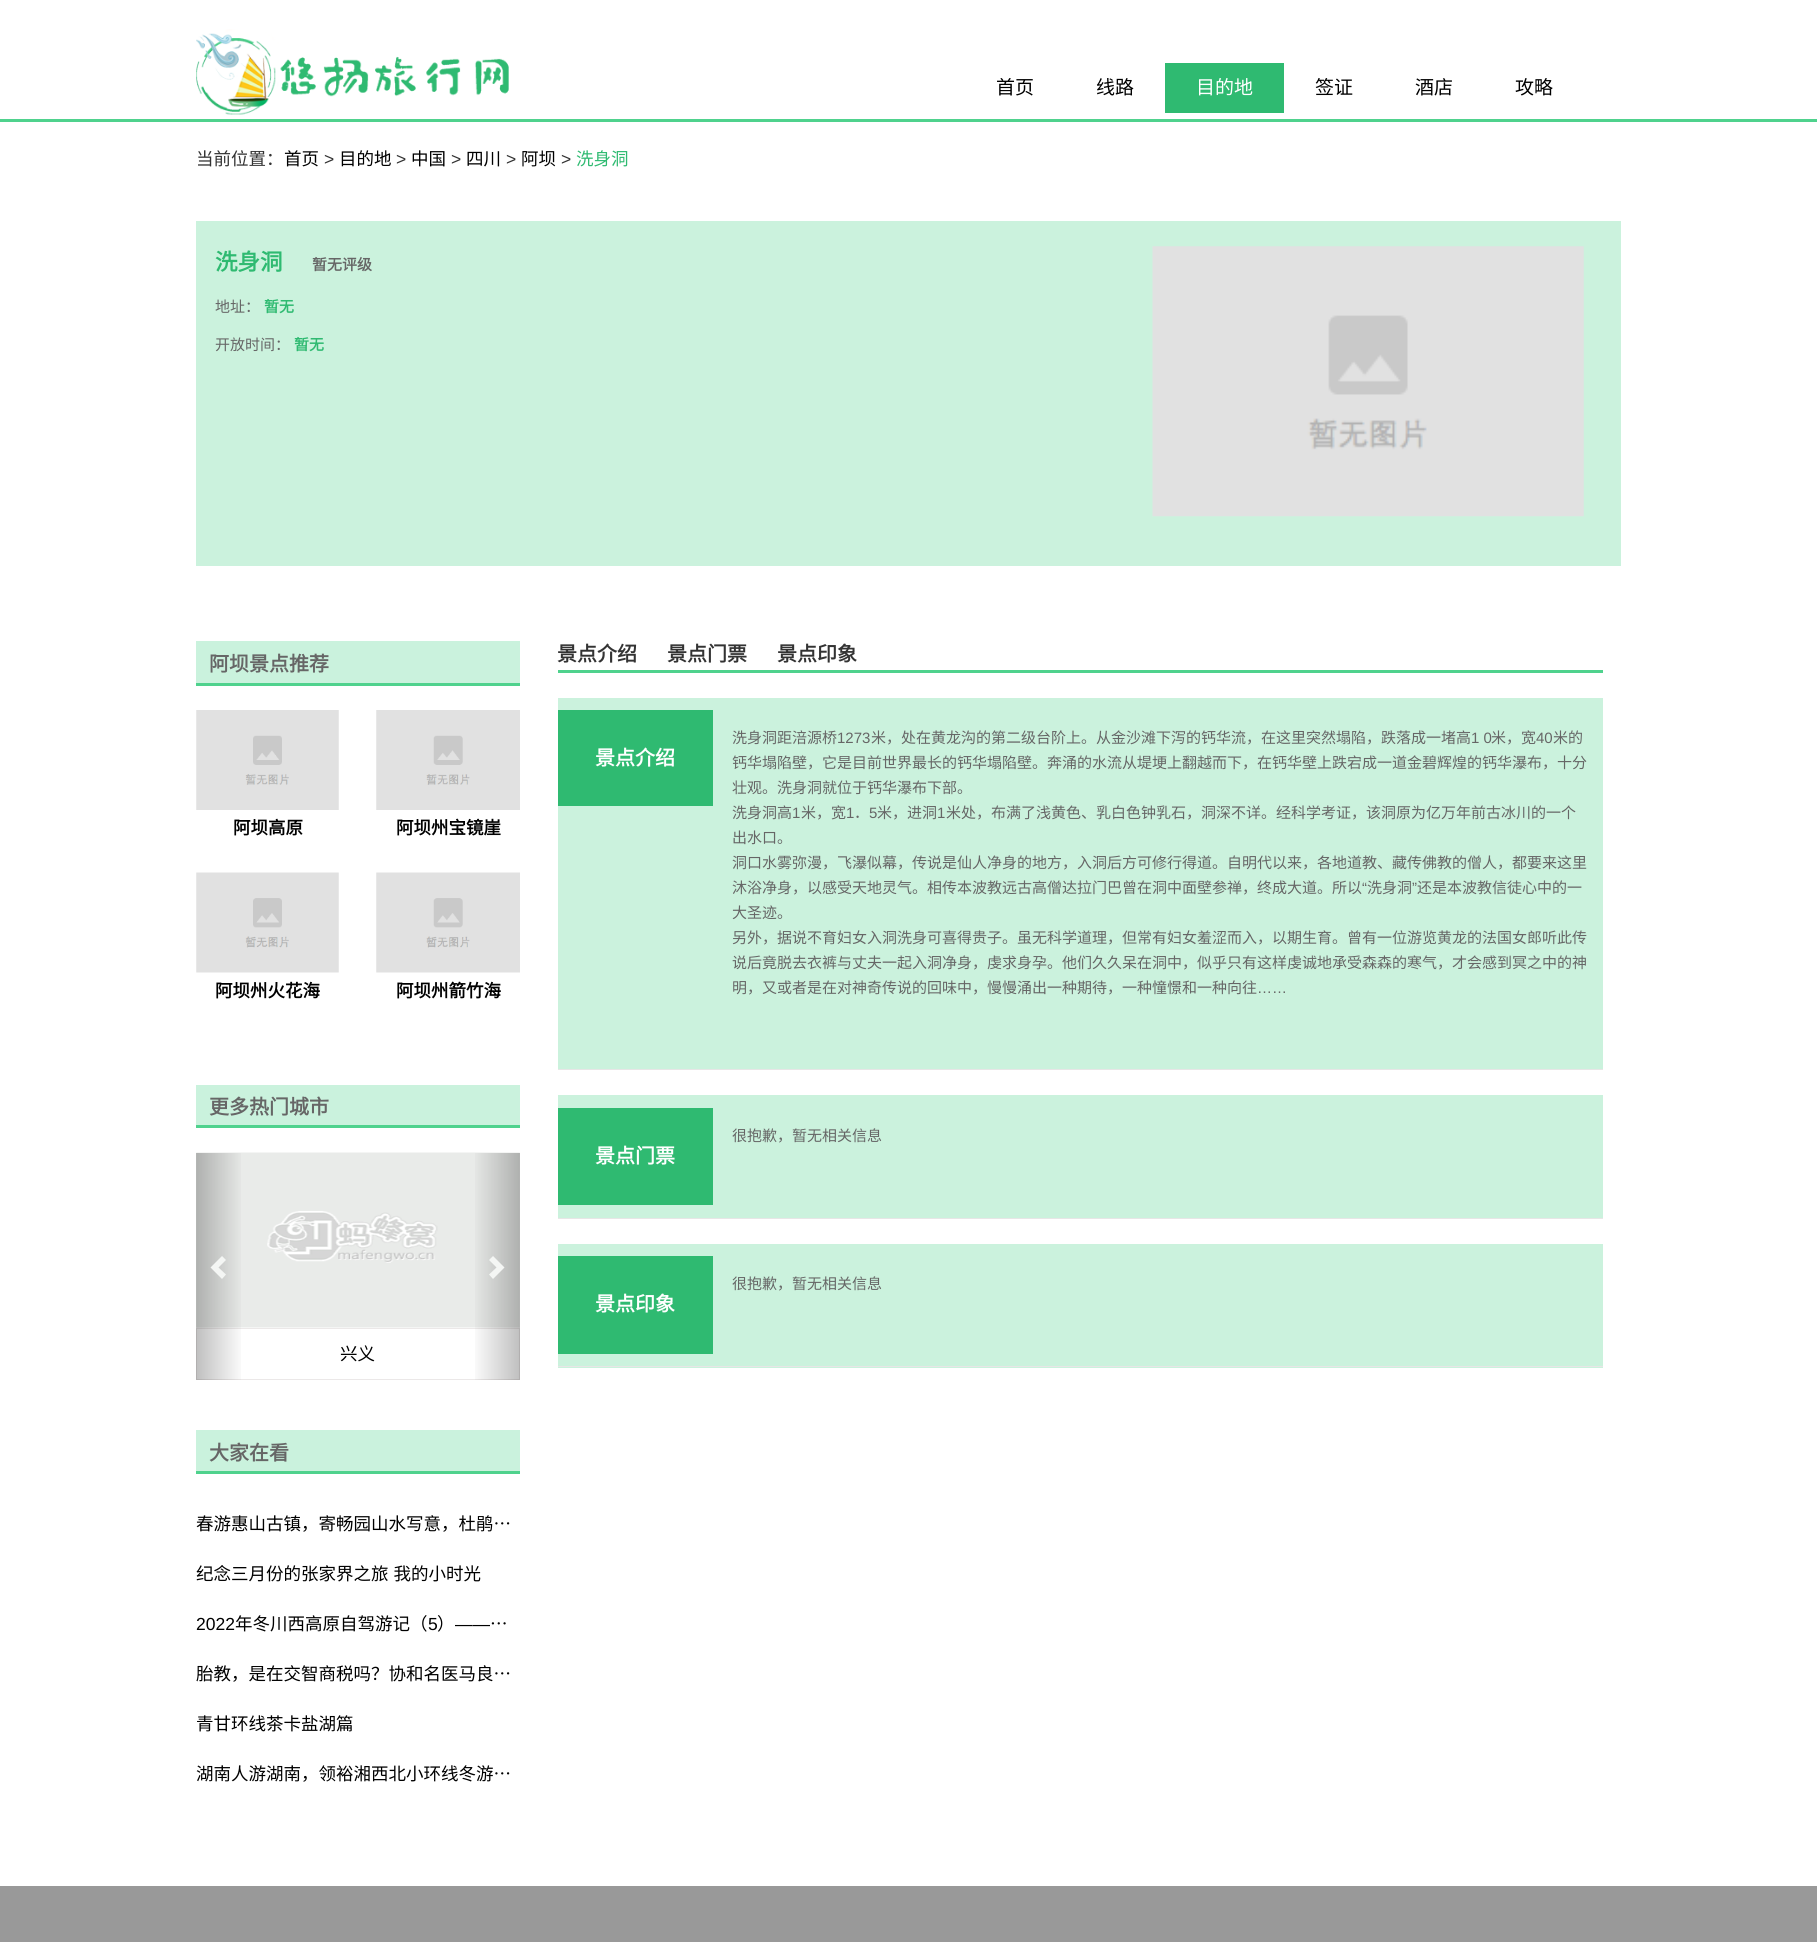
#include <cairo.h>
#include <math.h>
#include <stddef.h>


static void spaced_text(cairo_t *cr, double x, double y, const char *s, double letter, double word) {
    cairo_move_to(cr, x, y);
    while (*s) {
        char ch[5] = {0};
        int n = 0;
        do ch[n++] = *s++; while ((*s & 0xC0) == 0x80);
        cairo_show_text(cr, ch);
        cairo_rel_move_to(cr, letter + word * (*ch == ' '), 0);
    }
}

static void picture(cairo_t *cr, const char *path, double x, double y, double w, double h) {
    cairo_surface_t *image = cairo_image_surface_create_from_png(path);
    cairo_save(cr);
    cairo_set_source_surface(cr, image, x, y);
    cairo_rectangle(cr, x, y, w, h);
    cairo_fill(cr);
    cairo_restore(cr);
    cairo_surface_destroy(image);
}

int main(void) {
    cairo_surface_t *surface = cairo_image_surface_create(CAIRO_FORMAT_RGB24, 1817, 1942);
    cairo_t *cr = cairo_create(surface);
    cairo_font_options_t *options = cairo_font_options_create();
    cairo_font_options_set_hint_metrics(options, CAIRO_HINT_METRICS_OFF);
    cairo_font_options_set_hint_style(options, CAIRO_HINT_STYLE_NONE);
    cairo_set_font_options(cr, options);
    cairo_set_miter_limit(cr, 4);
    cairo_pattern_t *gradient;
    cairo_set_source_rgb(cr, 1, 1, 1);
    cairo_paint(cr);
    picture(cr, "img1.png", 196, 29, 313, 86);
    cairo_select_font_face(cr, "Noto Sans CJK SC", CAIRO_FONT_SLANT_NORMAL, CAIRO_FONT_WEIGHT_NORMAL);
    cairo_set_font_size(cr, 19);
    cairo_set_source_rgb(cr, 0, 0, 0);
    cairo_move_to(cr, 996, 94);
    cairo_show_text(cr, "首页");
    cairo_move_to(cr, 1096, 94);
    cairo_show_text(cr, "线路");
    cairo_set_source_rgb(cr, 0.184, 0.729, 0.443);
    cairo_rectangle(cr, 1165, 63, 119, 50);
    cairo_fill(cr);
    cairo_set_source_rgb(cr, 1, 1, 1);
    cairo_move_to(cr, 1196, 94);
    cairo_show_text(cr, "目的地");
    cairo_set_source_rgb(cr, 0, 0, 0);
    cairo_move_to(cr, 1315, 94);
    cairo_show_text(cr, "签证");
    cairo_move_to(cr, 1415, 94);
    cairo_show_text(cr, "酒店");
    cairo_move_to(cr, 1515, 94);
    cairo_show_text(cr, "攻略");
    cairo_set_source_rgb(cr, 0.31, 0.824, 0.553);
    cairo_rectangle(cr, 0, 119, 1817, 3);
    cairo_fill(cr);
    cairo_set_font_size(cr, 17.5);
    cairo_set_source_rgb(cr, 0.2, 0.2, 0.2);
    cairo_move_to(cr, 196, 165);
    cairo_show_text(cr, "当前位置：");
    cairo_set_source_rgb(cr, 0, 0, 0);
    cairo_move_to(cr, 284, 165);
    cairo_show_text(cr, "首页");
    cairo_select_font_face(cr, "Liberation Sans", CAIRO_FONT_SLANT_NORMAL, CAIRO_FONT_WEIGHT_NORMAL);
    cairo_set_source_rgb(cr, 0.2, 0.2, 0.2);
    cairo_move_to(cr, 324, 165);
    cairo_show_text(cr, ">");
    cairo_select_font_face(cr, "Noto Sans CJK SC", CAIRO_FONT_SLANT_NORMAL, CAIRO_FONT_WEIGHT_NORMAL);
    cairo_set_source_rgb(cr, 0, 0, 0);
    cairo_move_to(cr, 339, 165);
    cairo_show_text(cr, "目的地");
    cairo_select_font_face(cr, "Liberation Sans", CAIRO_FONT_SLANT_NORMAL, CAIRO_FONT_WEIGHT_NORMAL);
    cairo_set_source_rgb(cr, 0.2, 0.2, 0.2);
    cairo_move_to(cr, 396, 165);
    cairo_show_text(cr, ">");
    cairo_select_font_face(cr, "Noto Sans CJK SC", CAIRO_FONT_SLANT_NORMAL, CAIRO_FONT_WEIGHT_NORMAL);
    cairo_set_source_rgb(cr, 0, 0, 0);
    cairo_move_to(cr, 411, 165);
    cairo_show_text(cr, "中国");
    cairo_select_font_face(cr, "Liberation Sans", CAIRO_FONT_SLANT_NORMAL, CAIRO_FONT_WEIGHT_NORMAL);
    cairo_set_source_rgb(cr, 0.2, 0.2, 0.2);
    cairo_move_to(cr, 451, 165);
    cairo_show_text(cr, ">");
    cairo_select_font_face(cr, "Noto Sans CJK SC", CAIRO_FONT_SLANT_NORMAL, CAIRO_FONT_WEIGHT_NORMAL);
    cairo_set_source_rgb(cr, 0, 0, 0);
    cairo_move_to(cr, 466, 165);
    cairo_show_text(cr, "四川");
    cairo_select_font_face(cr, "Liberation Sans", CAIRO_FONT_SLANT_NORMAL, CAIRO_FONT_WEIGHT_NORMAL);
    cairo_set_source_rgb(cr, 0.2, 0.2, 0.2);
    cairo_move_to(cr, 506, 165);
    cairo_show_text(cr, ">");
    cairo_select_font_face(cr, "Noto Sans CJK SC", CAIRO_FONT_SLANT_NORMAL, CAIRO_FONT_WEIGHT_NORMAL);
    cairo_set_source_rgb(cr, 0, 0, 0);
    cairo_move_to(cr, 521, 165);
    cairo_show_text(cr, "阿坝");
    cairo_select_font_face(cr, "Liberation Sans", CAIRO_FONT_SLANT_NORMAL, CAIRO_FONT_WEIGHT_NORMAL);
    cairo_set_source_rgb(cr, 0.2, 0.2, 0.2);
    cairo_move_to(cr, 561, 165);
    cairo_show_text(cr, ">");
    cairo_select_font_face(cr, "Noto Sans CJK SC", CAIRO_FONT_SLANT_NORMAL, CAIRO_FONT_WEIGHT_NORMAL);
    cairo_set_source_rgb(cr, 0.184, 0.729, 0.443);
    cairo_move_to(cr, 576, 165);
    cairo_show_text(cr, "洗身洞");
    cairo_set_source_rgb(cr, 0.796, 0.949, 0.867);
    cairo_rectangle(cr, 196, 221, 1425, 345);
    cairo_fill(cr);
    cairo_select_font_face(cr, "Noto Sans CJK SC", CAIRO_FONT_SLANT_NORMAL, CAIRO_FONT_WEIGHT_BOLD);
    cairo_set_font_size(cr, 22.5);
    cairo_set_source_rgb(cr, 0.184, 0.729, 0.443);
    cairo_move_to(cr, 215, 270);
    cairo_show_text(cr, "洗身洞");
    cairo_set_font_size(cr, 15);
    cairo_set_source_rgb(cr, 0.4, 0.4, 0.4);
    cairo_move_to(cr, 312, 270);
    cairo_show_text(cr, "暂无评级");
    cairo_select_font_face(cr, "Noto Sans CJK SC", CAIRO_FONT_SLANT_NORMAL, CAIRO_FONT_WEIGHT_NORMAL);
    cairo_move_to(cr, 215, 312);
    cairo_show_text(cr, "地址：");
    cairo_select_font_face(cr, "Noto Sans CJK SC", CAIRO_FONT_SLANT_NORMAL, CAIRO_FONT_WEIGHT_BOLD);
    cairo_set_source_rgb(cr, 0.184, 0.729, 0.443);
    cairo_move_to(cr, 264, 312);
    cairo_show_text(cr, "暂无");
    cairo_select_font_face(cr, "Noto Sans CJK SC", CAIRO_FONT_SLANT_NORMAL, CAIRO_FONT_WEIGHT_NORMAL);
    cairo_set_source_rgb(cr, 0.4, 0.4, 0.4);
    cairo_move_to(cr, 215, 350);
    cairo_show_text(cr, "开放时间：");
    cairo_select_font_face(cr, "Noto Sans CJK SC", CAIRO_FONT_SLANT_NORMAL, CAIRO_FONT_WEIGHT_BOLD);
    cairo_set_source_rgb(cr, 0.184, 0.729, 0.443);
    cairo_move_to(cr, 294, 350);
    cairo_show_text(cr, "暂无");
    picture(cr, "img2.png", 1152, 246, 432, 271);
    cairo_set_source_rgb(cr, 0.792, 0.949, 0.867);
    cairo_rectangle(cr, 196, 641, 324, 42);
    cairo_fill(cr);
    cairo_set_font_size(cr, 20);
    cairo_set_source_rgb(cr, 0.4, 0.4, 0.4);
    cairo_move_to(cr, 209, 671);
    cairo_show_text(cr, "阿坝景点推荐");
    cairo_set_source_rgb(cr, 0.31, 0.824, 0.553);
    cairo_rectangle(cr, 196, 683, 324, 3);
    cairo_fill(cr);
    picture(cr, "img3.png", 196, 710, 143, 100);
    cairo_set_font_size(cr, 17.5);
    cairo_set_source_rgb(cr, 0, 0, 0);
    cairo_move_to(cr, 233, 834);
    cairo_show_text(cr, "阿坝高原");
    picture(cr, "img4.png", 376, 710, 144, 100);
    cairo_move_to(cr, 396, 834);
    cairo_show_text(cr, "阿坝州宝镜崖");
    picture(cr, "img5.png", 196, 872, 143, 101);
    cairo_move_to(cr, 215, 997);
    cairo_show_text(cr, "阿坝州火花海");
    picture(cr, "img6.png", 376, 872, 144, 101);
    cairo_move_to(cr, 396, 997);
    cairo_show_text(cr, "阿坝州箭竹海");
    cairo_set_source_rgb(cr, 0.792, 0.949, 0.867);
    cairo_rectangle(cr, 196, 1085, 324, 40);
    cairo_fill(cr);
    cairo_set_font_size(cr, 20);
    cairo_set_source_rgb(cr, 0.4, 0.4, 0.4);
    cairo_move_to(cr, 209, 1114);
    cairo_show_text(cr, "更多热门城市");
    cairo_set_source_rgb(cr, 0.31, 0.824, 0.553);
    cairo_rectangle(cr, 196, 1125, 324, 3);
    cairo_fill(cr);
    picture(cr, "img7.png", 196, 1152, 324, 176);
    cairo_rectangle(cr, 196.5, 1328.5, 323, 51);
    cairo_set_source_rgb(cr, 0.918, 0.91, 0.91);
    cairo_set_line_width(cr, 1);
    cairo_stroke(cr);
    gradient = cairo_pattern_create_linear(196, 1266, 245, 1266);
    cairo_pattern_add_color_stop_rgba(gradient, 0, 0, 0, 0, 0.25);
    cairo_pattern_add_color_stop_rgba(gradient, 1, 0, 0, 0, 0);
    cairo_set_source(cr, gradient);
    cairo_pattern_destroy(gradient);
    cairo_rectangle(cr, 196, 1153, 45, 227);
    cairo_fill(cr);
    cairo_set_source_rgb(cr, 0.957, 0.961, 0.957);
    cairo_new_path(cr);
    cairo_move_to(cr, 226, 1260);
    cairo_line_to(cr, 218.5, 1267.5);
    cairo_line_to(cr, 226, 1274.5);
    cairo_line_to(cr, 222, 1279);
    cairo_line_to(cr, 210.5, 1267.5);
    cairo_line_to(cr, 222, 1256);
    cairo_close_path(cr);
    cairo_fill(cr);
    cairo_select_font_face(cr, "Noto Sans CJK SC", CAIRO_FONT_SLANT_NORMAL, CAIRO_FONT_WEIGHT_NORMAL);
    cairo_set_font_size(cr, 17.5);
    cairo_set_source_rgb(cr, 0, 0, 0);
    cairo_move_to(cr, 340, 1360);
    cairo_show_text(cr, "兴义");
    gradient = cairo_pattern_create_linear(471, 1266, 520, 1266);
    cairo_pattern_add_color_stop_rgba(gradient, 0, 0, 0, 0, 0);
    cairo_pattern_add_color_stop_rgba(gradient, 1, 0, 0, 0, 0.25);
    cairo_set_source(cr, gradient);
    cairo_pattern_destroy(gradient);
    cairo_rectangle(cr, 475, 1153, 45, 227);
    cairo_fill(cr);
    cairo_set_source_rgb(cr, 0.957, 0.961, 0.957);
    cairo_new_path(cr);
    cairo_move_to(cr, 504.5, 1267.5);
    cairo_line_to(cr, 493, 1279);
    cairo_line_to(cr, 489, 1274.5);
    cairo_line_to(cr, 496.5, 1267.5);
    cairo_line_to(cr, 489, 1260);
    cairo_line_to(cr, 493, 1256);
    cairo_close_path(cr);
    cairo_fill(cr);
    cairo_set_source_rgb(cr, 0.792, 0.949, 0.867);
    cairo_rectangle(cr, 196, 1430, 324, 41);
    cairo_fill(cr);
    cairo_select_font_face(cr, "Noto Sans CJK SC", CAIRO_FONT_SLANT_NORMAL, CAIRO_FONT_WEIGHT_BOLD);
    cairo_set_font_size(cr, 20);
    cairo_set_source_rgb(cr, 0.4, 0.4, 0.4);
    cairo_move_to(cr, 209, 1460);
    cairo_show_text(cr, "大家在看");
    cairo_set_source_rgb(cr, 0.31, 0.824, 0.553);
    cairo_rectangle(cr, 196, 1471, 324, 3);
    cairo_fill(cr);
    cairo_select_font_face(cr, "Noto Sans CJK SC", CAIRO_FONT_SLANT_NORMAL, CAIRO_FONT_WEIGHT_NORMAL);
    cairo_set_font_size(cr, 17.5);
    cairo_set_source_rgb(cr, 0, 0, 0);
    cairo_move_to(cr, 196, 1530);
    cairo_show_text(cr, "春游惠山古镇，寄畅园山水写意，杜鹃…");
    spaced_text(cr, 196, 1580, "纪念三月份的张家界之旅 我的小时光", 0, 1);
    cairo_select_font_face(cr, "Liberation Sans", CAIRO_FONT_SLANT_NORMAL, CAIRO_FONT_WEIGHT_NORMAL);
    cairo_move_to(cr, 196, 1630);
    cairo_show_text(cr, "2022");
    cairo_select_font_face(cr, "Noto Sans CJK SC", CAIRO_FONT_SLANT_NORMAL, CAIRO_FONT_WEIGHT_NORMAL);
    cairo_move_to(cr, 235, 1630);
    cairo_show_text(cr, "年冬川西高原自驾游记（");
    cairo_select_font_face(cr, "Liberation Sans", CAIRO_FONT_SLANT_NORMAL, CAIRO_FONT_WEIGHT_NORMAL);
    cairo_move_to(cr, 428, 1630);
    cairo_show_text(cr, "5");
    cairo_select_font_face(cr, "Noto Sans CJK SC", CAIRO_FONT_SLANT_NORMAL, CAIRO_FONT_WEIGHT_NORMAL);
    cairo_move_to(cr, 437, 1630);
    cairo_show_text(cr, "）");
    cairo_move_to(cr, 490, 1630);
    cairo_show_text(cr, "…");
    cairo_select_font_face(cr, "Liberation Sans", CAIRO_FONT_SLANT_NORMAL, CAIRO_FONT_WEIGHT_NORMAL);
    cairo_move_to(cr, 455, 1630);
    cairo_show_text(cr, "——");
    cairo_select_font_face(cr, "Noto Sans CJK SC", CAIRO_FONT_SLANT_NORMAL, CAIRO_FONT_WEIGHT_NORMAL);
    cairo_move_to(cr, 196, 1680);
    cairo_show_text(cr, "胎教，是在交智商税吗？协和名医马良…");
    cairo_move_to(cr, 196, 1730);
    cairo_show_text(cr, "青甘环线茶卡盐湖篇");
    cairo_move_to(cr, 196, 1780);
    cairo_show_text(cr, "湖南人游湖南，领裕湘西北小环线冬游…");
    cairo_set_source_rgb(cr, 0.31, 0.824, 0.553);
    cairo_rectangle(cr, 558, 670, 1045, 3);
    cairo_fill(cr);
    cairo_select_font_face(cr, "Noto Sans CJK SC", CAIRO_FONT_SLANT_NORMAL, CAIRO_FONT_WEIGHT_BOLD);
    cairo_set_font_size(cr, 20);
    cairo_set_source_rgb(cr, 0.2, 0.2, 0.2);
    cairo_move_to(cr, 557, 661);
    cairo_show_text(cr, "景点介绍");
    cairo_move_to(cr, 667, 661);
    cairo_show_text(cr, "景点门票");
    cairo_move_to(cr, 777, 661);
    cairo_show_text(cr, "景点印象");
    cairo_set_source_rgb(cr, 0.796, 0.949, 0.867);
    cairo_rectangle(cr, 558, 698, 1045, 371);
    cairo_fill(cr);
    cairo_set_source_rgb(cr, 0.906, 0.902, 0.902);
    cairo_rectangle(cr, 558, 1069, 1045, 1);
    cairo_fill(cr);
    cairo_set_source_rgb(cr, 0.184, 0.729, 0.443);
    cairo_rectangle(cr, 558, 710, 155, 96);
    cairo_fill(cr);
    cairo_set_source_rgb(cr, 1, 1, 1);
    cairo_move_to(cr, 595, 765);
    cairo_show_text(cr, "景点介绍");
    cairo_select_font_face(cr, "Noto Sans CJK SC", CAIRO_FONT_SLANT_NORMAL, CAIRO_FONT_WEIGHT_NORMAL);
    cairo_set_font_size(cr, 15);
    cairo_set_source_rgb(cr, 0.4, 0.4, 0.4);
    cairo_move_to(cr, 732, 743);
    cairo_show_text(cr, "洗身洞距涪源桥");
    cairo_select_font_face(cr, "Liberation Sans", CAIRO_FONT_SLANT_NORMAL, CAIRO_FONT_WEIGHT_NORMAL);
    cairo_move_to(cr, 837, 743);
    cairo_show_text(cr, "1273");
    cairo_select_font_face(cr, "Noto Sans CJK SC", CAIRO_FONT_SLANT_NORMAL, CAIRO_FONT_WEIGHT_NORMAL);
    cairo_move_to(cr, 871, 743);
    cairo_show_text(cr, "米，处在黄龙沟的第二级台阶上。从金沙滩下泻的钙华流，在这里突然塌陷，跌落成一堵高");
    cairo_select_font_face(cr, "Liberation Sans", CAIRO_FONT_SLANT_NORMAL, CAIRO_FONT_WEIGHT_NORMAL);
    cairo_move_to(cr, 1471, 743);
    cairo_show_text(cr, "1 0");
    cairo_select_font_face(cr, "Noto Sans CJK SC", CAIRO_FONT_SLANT_NORMAL, CAIRO_FONT_WEIGHT_NORMAL);
    cairo_move_to(cr, 1491, 743);
    cairo_show_text(cr, "米，宽");
    cairo_select_font_face(cr, "Liberation Sans", CAIRO_FONT_SLANT_NORMAL, CAIRO_FONT_WEIGHT_NORMAL);
    cairo_move_to(cr, 1536, 743);
    cairo_show_text(cr, "40");
    cairo_select_font_face(cr, "Noto Sans CJK SC", CAIRO_FONT_SLANT_NORMAL, CAIRO_FONT_WEIGHT_NORMAL);
    cairo_move_to(cr, 1553, 743);
    cairo_show_text(cr, "米的");
    cairo_move_to(cr, 732, 768);
    cairo_show_text(cr, "钙华塌陷壁，它是目前世界最长的钙华塌陷壁。奔涌的水流从堤埂上翻越而下，在钙华壁上跌宕成一道金碧辉煌的钙华瀑布，十分");
    cairo_move_to(cr, 732, 793);
    cairo_show_text(cr, "壮观。洗身洞就位于钙华瀑布下部。");
    cairo_move_to(cr, 732, 818);
    cairo_show_text(cr, "洗身洞高");
    cairo_select_font_face(cr, "Liberation Sans", CAIRO_FONT_SLANT_NORMAL, CAIRO_FONT_WEIGHT_NORMAL);
    cairo_move_to(cr, 792, 818);
    cairo_show_text(cr, "1");
    cairo_select_font_face(cr, "Noto Sans CJK SC", CAIRO_FONT_SLANT_NORMAL, CAIRO_FONT_WEIGHT_NORMAL);
    cairo_move_to(cr, 801, 818);
    cairo_show_text(cr, "米，宽");
    cairo_select_font_face(cr, "Liberation Sans", CAIRO_FONT_SLANT_NORMAL, CAIRO_FONT_WEIGHT_NORMAL);
    cairo_move_to(cr, 846, 818);
    cairo_show_text(cr, "1");
    cairo_select_font_face(cr, "Noto Sans CJK SC", CAIRO_FONT_SLANT_NORMAL, CAIRO_FONT_WEIGHT_NORMAL);
    cairo_move_to(cr, 854, 818);
    cairo_show_text(cr, "．");
    cairo_select_font_face(cr, "Liberation Sans", CAIRO_FONT_SLANT_NORMAL, CAIRO_FONT_WEIGHT_NORMAL);
    cairo_move_to(cr, 869, 818);
    cairo_show_text(cr, "5");
    cairo_select_font_face(cr, "Noto Sans CJK SC", CAIRO_FONT_SLANT_NORMAL, CAIRO_FONT_WEIGHT_NORMAL);
    cairo_move_to(cr, 877, 818);
    cairo_show_text(cr, "米，进洞");
    cairo_select_font_face(cr, "Liberation Sans", CAIRO_FONT_SLANT_NORMAL, CAIRO_FONT_WEIGHT_NORMAL);
    cairo_move_to(cr, 937, 818);
    cairo_show_text(cr, "1");
    cairo_select_font_face(cr, "Noto Sans CJK SC", CAIRO_FONT_SLANT_NORMAL, CAIRO_FONT_WEIGHT_NORMAL);
    cairo_move_to(cr, 946, 818);
    cairo_show_text(cr, "米处，布满了浅黄色、乳白色钟乳石，洞深不详。经科学考证，该洞原为亿万年前古冰川的一个");
    cairo_move_to(cr, 732, 843);
    cairo_show_text(cr, "出水口。");
    cairo_move_to(cr, 732, 868);
    cairo_show_text(cr, "洞口水雾弥漫，飞瀑似幕，传说是仙人净身的地方，入洞后方可修行得道。自明代以来，各地道教、藏传佛教的僧人，都要来这里");
    cairo_move_to(cr, 732, 893);
    cairo_show_text(cr, "沐浴净身，以感受天地灵气。相传本波教远古高僧达拉门巴曾在洞中面壁参禅，终成大道。所以");
    cairo_select_font_face(cr, "Liberation Sans", CAIRO_FONT_SLANT_NORMAL, CAIRO_FONT_WEIGHT_NORMAL);
    cairo_move_to(cr, 1362, 893);
    cairo_show_text(cr, "“");
    cairo_select_font_face(cr, "Noto Sans CJK SC", CAIRO_FONT_SLANT_NORMAL, CAIRO_FONT_WEIGHT_NORMAL);
    cairo_move_to(cr, 1367, 893);
    cairo_show_text(cr, "洗身洞");
    cairo_select_font_face(cr, "Liberation Sans", CAIRO_FONT_SLANT_NORMAL, CAIRO_FONT_WEIGHT_NORMAL);
    cairo_move_to(cr, 1412, 893);
    cairo_show_text(cr, "”");
    cairo_select_font_face(cr, "Noto Sans CJK SC", CAIRO_FONT_SLANT_NORMAL, CAIRO_FONT_WEIGHT_NORMAL);
    cairo_move_to(cr, 1417, 893);
    cairo_show_text(cr, "还是本波教信徒心中的一");
    cairo_move_to(cr, 732, 918);
    cairo_show_text(cr, "大圣迹。");
    cairo_move_to(cr, 732, 943);
    cairo_show_text(cr, "另外，据说不育妇女入洞洗身可喜得贵子。虽无科学道理，但常有妇女羞涩而入，以期生育。曾有一位游览黄龙的法国女郎听此传");
    cairo_move_to(cr, 732, 968);
    cairo_show_text(cr, "说后竟脱去衣裤与丈夫一起入洞净身，虔求身孕。他们久久呆在洞中，似乎只有这样虔诚地承受森森的寒气，才会感到冥之中的神");
    cairo_move_to(cr, 732, 993);
    cairo_show_text(cr, "明，又或者是在对神奇传说的回味中，慢慢涌出一种期待，一种憧憬和一种向往");
    cairo_select_font_face(cr, "Liberation Sans", CAIRO_FONT_SLANT_NORMAL, CAIRO_FONT_WEIGHT_NORMAL);
    cairo_move_to(cr, 1257, 993);
    cairo_show_text(cr, "……");
    cairo_set_source_rgb(cr, 0.796, 0.949, 0.867);
    cairo_rectangle(cr, 558, 1095, 1045, 123);
    cairo_fill(cr);
    cairo_set_source_rgb(cr, 0.906, 0.902, 0.902);
    cairo_rectangle(cr, 558, 1218, 1045, 1);
    cairo_fill(cr);
    cairo_select_font_face(cr, "Noto Sans CJK SC", CAIRO_FONT_SLANT_NORMAL, CAIRO_FONT_WEIGHT_NORMAL);
    cairo_set_source_rgb(cr, 0.4, 0.4, 0.4);
    cairo_move_to(cr, 732, 1141);
    cairo_show_text(cr, "很抱歉，暂无相关信息");
    cairo_set_source_rgb(cr, 0.184, 0.729, 0.443);
    cairo_rectangle(cr, 558, 1108, 155, 97);
    cairo_fill(cr);
    cairo_select_font_face(cr, "Noto Sans CJK SC", CAIRO_FONT_SLANT_NORMAL, CAIRO_FONT_WEIGHT_BOLD);
    cairo_set_font_size(cr, 20);
    cairo_set_source_rgb(cr, 1, 1, 1);
    cairo_move_to(cr, 595, 1163);
    cairo_show_text(cr, "景点门票");
    cairo_set_source_rgb(cr, 0.796, 0.949, 0.867);
    cairo_rectangle(cr, 558, 1244, 1045, 124);
    cairo_fill(cr);
    cairo_set_source_rgb(cr, 0.906, 0.902, 0.902);
    cairo_rectangle(cr, 558, 1366, 1045, 1);
    cairo_fill(cr);
    cairo_select_font_face(cr, "Noto Sans CJK SC", CAIRO_FONT_SLANT_NORMAL, CAIRO_FONT_WEIGHT_NORMAL);
    cairo_set_font_size(cr, 15);
    cairo_set_source_rgb(cr, 0.4, 0.4, 0.4);
    cairo_move_to(cr, 732, 1289);
    cairo_show_text(cr, "很抱歉，暂无相关信息");
    cairo_set_source_rgb(cr, 0.184, 0.729, 0.443);
    cairo_rectangle(cr, 558, 1256, 155, 98);
    cairo_fill(cr);
    cairo_select_font_face(cr, "Noto Sans CJK SC", CAIRO_FONT_SLANT_NORMAL, CAIRO_FONT_WEIGHT_BOLD);
    cairo_set_font_size(cr, 20);
    cairo_set_source_rgb(cr, 1, 1, 1);
    cairo_move_to(cr, 595, 1311);
    cairo_show_text(cr, "景点印象");
    cairo_set_source_rgb(cr, 0.6, 0.6, 0.6);
    cairo_rectangle(cr, 0, 1886, 1817, 56);
    cairo_fill(cr);
    cairo_surface_write_to_png(surface, "page.png");
    cairo_font_options_destroy(options);
    cairo_destroy(cr);
    cairo_surface_destroy(surface);
    return 0;
}
